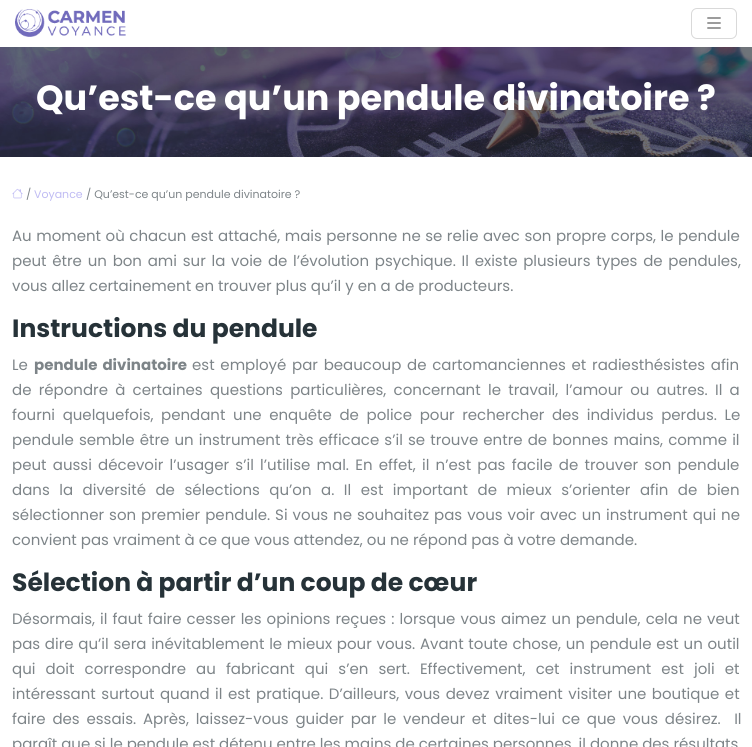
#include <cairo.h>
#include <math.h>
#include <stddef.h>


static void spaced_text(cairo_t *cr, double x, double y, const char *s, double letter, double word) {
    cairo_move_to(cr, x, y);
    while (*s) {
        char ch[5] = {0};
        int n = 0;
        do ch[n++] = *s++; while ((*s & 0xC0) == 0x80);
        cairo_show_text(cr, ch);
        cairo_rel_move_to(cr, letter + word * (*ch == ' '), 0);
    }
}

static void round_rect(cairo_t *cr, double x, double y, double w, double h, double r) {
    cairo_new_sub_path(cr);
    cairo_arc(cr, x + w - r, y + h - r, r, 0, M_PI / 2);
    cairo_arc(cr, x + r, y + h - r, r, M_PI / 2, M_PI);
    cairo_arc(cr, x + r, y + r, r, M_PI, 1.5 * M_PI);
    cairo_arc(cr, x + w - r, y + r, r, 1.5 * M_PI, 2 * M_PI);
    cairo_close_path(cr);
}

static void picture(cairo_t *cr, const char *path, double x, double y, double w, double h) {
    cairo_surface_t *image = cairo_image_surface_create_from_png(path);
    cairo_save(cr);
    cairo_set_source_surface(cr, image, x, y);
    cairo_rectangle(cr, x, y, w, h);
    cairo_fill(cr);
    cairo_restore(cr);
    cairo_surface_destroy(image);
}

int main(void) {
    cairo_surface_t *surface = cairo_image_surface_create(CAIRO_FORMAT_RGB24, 752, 747);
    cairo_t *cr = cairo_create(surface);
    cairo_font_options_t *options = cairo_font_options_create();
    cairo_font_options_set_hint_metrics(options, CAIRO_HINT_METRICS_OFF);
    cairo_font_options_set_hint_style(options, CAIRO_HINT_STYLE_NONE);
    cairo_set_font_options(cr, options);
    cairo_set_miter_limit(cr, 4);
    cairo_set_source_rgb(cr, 1, 1, 1);
    cairo_paint(cr);
    picture(cr, "img1.png", 15, 9, 111, 28);
    round_rect(cr, 691.5, 8.5, 45, 30, 5.5);
    cairo_set_source_rgb(cr, 0.851, 0.851, 0.851);
    cairo_set_line_width(cr, 1);
    cairo_stroke(cr);
    picture(cr, "img2.png", 707, 17, 14, 12);
    picture(cr, "img3.png", 0, 47, 752, 110);
    cairo_select_font_face(cr, "Poppins", CAIRO_FONT_SLANT_NORMAL, CAIRO_FONT_WEIGHT_BOLD);
    cairo_set_font_size(cr, 35);
    cairo_set_source_rgb(cr, 1, 1, 1);
    cairo_move_to(cr, 36, 110);
    cairo_show_text(cr, "Qu’est-ce qu’un pendule divinatoire ?");
    picture(cr, "img4.png", 12, 188, 11, 11);
    cairo_select_font_face(cr, "Poppins", CAIRO_FONT_SLANT_NORMAL, CAIRO_FONT_WEIGHT_NORMAL);
    cairo_set_font_size(cr, 11);
    cairo_set_source_rgb(cr, 0.49, 0.518, 0.533);
    cairo_move_to(cr, 26, 198);
    cairo_show_text(cr, "/");
    cairo_set_source_rgb(cr, 0.749, 0.733, 0.953);
    cairo_move_to(cr, 34, 198);
    cairo_show_text(cr, "Voyance");
    cairo_set_source_rgb(cr, 0.49, 0.518, 0.533);
    cairo_move_to(cr, 86, 198);
    cairo_show_text(cr, "/ Qu’est-ce qu’un pendule divinatoire ?");
    cairo_set_font_size(cr, 15);
    spaced_text(cr, 12, 241, "Au moment où chacun est attaché, mais personne ne se relie avec son propre corps, le pendule", 0, 0.5);
    spaced_text(cr, 12, 266, "peut être un bon ami sur la voie de l’évolution psychique. Il existe plusieurs types de pendules,", 0, 1.75);
    cairo_move_to(cr, 12, 291);
    cairo_show_text(cr, "vous allez certainement en trouver plus qu’il y en a de producteurs.");
    cairo_select_font_face(cr, "Poppins", CAIRO_FONT_SLANT_NORMAL, CAIRO_FONT_WEIGHT_BOLD);
    cairo_set_font_size(cr, 25);
    cairo_set_source_rgb(cr, 0.149, 0.196, 0.22);
    cairo_move_to(cr, 12, 337);
    cairo_show_text(cr, "Instructions du pendule");
    cairo_select_font_face(cr, "Poppins", CAIRO_FONT_SLANT_NORMAL, CAIRO_FONT_WEIGHT_NORMAL);
    cairo_set_font_size(cr, 15);
    cairo_set_source_rgb(cr, 0.49, 0.518, 0.533);
    cairo_move_to(cr, 12, 370);
    cairo_show_text(cr, "Le");
    cairo_select_font_face(cr, "Poppins", CAIRO_FONT_SLANT_NORMAL, CAIRO_FONT_WEIGHT_BOLD);
    spaced_text(cr, 34, 370, "pendule divinatoire", 0, 1.75);
    cairo_select_font_face(cr, "Poppins", CAIRO_FONT_SLANT_NORMAL, CAIRO_FONT_WEIGHT_NORMAL);
    spaced_text(cr, 192, 370, "est employé par beaucoup de cartomanciennes et radiesthésistes afin", 0, 1.75);
    spaced_text(cr, 12, 395, "de répondre à certaines questions particulières, concernant le travail, l’amour ou autres. Il a", 0, 3.25);
    spaced_text(cr, 12, 420, "fourni quelquefois, pendant une enquête de police pour rechercher des individus perdus. Le", 0, 3.6);
    spaced_text(cr, 12, 445, "pendule semble être un instrument très efficace s’il se trouve entre de bonnes mains, comme il", 0, 1.1);
    spaced_text(cr, 12, 470, "peut aussi décevoir l’usager s’il l’utilise mal. En effet, il n’est pas facile de trouver son pendule", 0, 2.25);
    spaced_text(cr, 12, 495, "dans la diversité de sélections qu’on a. Il est important de mieux s’orienter afin de bien", 0, 5.5);
    spaced_text(cr, 12, 520, "sélectionner son premier pendule. Si vous ne souhaitez pas vous voir avec un instrument qui ne", 0, 1);
    cairo_move_to(cr, 12, 545);
    cairo_show_text(cr, "convient pas vraiment à ce que vous attendez, ou ne répond pas à votre demande.");
    cairo_select_font_face(cr, "Poppins", CAIRO_FONT_SLANT_NORMAL, CAIRO_FONT_WEIGHT_BOLD);
    cairo_set_font_size(cr, 25);
    cairo_set_source_rgb(cr, 0.149, 0.196, 0.22);
    cairo_move_to(cr, 12, 591);
    cairo_show_text(cr, "Sélection à partir d’un coup de cœur");
    cairo_select_font_face(cr, "Poppins", CAIRO_FONT_SLANT_NORMAL, CAIRO_FONT_WEIGHT_NORMAL);
    cairo_set_font_size(cr, 15);
    cairo_set_source_rgb(cr, 0.49, 0.518, 0.533);
    spaced_text(cr, 12, 624, "Désormais, il faut faire cesser les opinions reçues : lorsque vous aimez un pendule, cela ne veut", 0, 1.1);
    spaced_text(cr, 12, 649, "pas dire qu’il sera inévitablement le mieux pour vous. Avant toute chose, un pendule est un outil", 0, 0.75);
    spaced_text(cr, 12, 674, "qui doit correspondre au fabricant qui s’en sert. Effectivement, cet instrument est joli et", 0, 6.1);
    spaced_text(cr, 12, 699, "intéressant surtout quand il est pratique. D’ailleurs, vous devez vraiment visiter une boutique et", 0, 1.5);
    spaced_text(cr, 12, 724, "faire des essais. Après, laissez-vous guider par le vendeur et dites-lui ce que vous désirez.  Il", 0, 2.75);
    cairo_move_to(cr, 12, 749);
    cairo_show_text(cr, "paraît que si le pendule est détenu entre les mains de certaines personnes, il donne des résultats");
    cairo_surface_write_to_png(surface, "page.png");
    cairo_font_options_destroy(options);
    cairo_destroy(cr);
    cairo_surface_destroy(surface);
    return 0;
}
